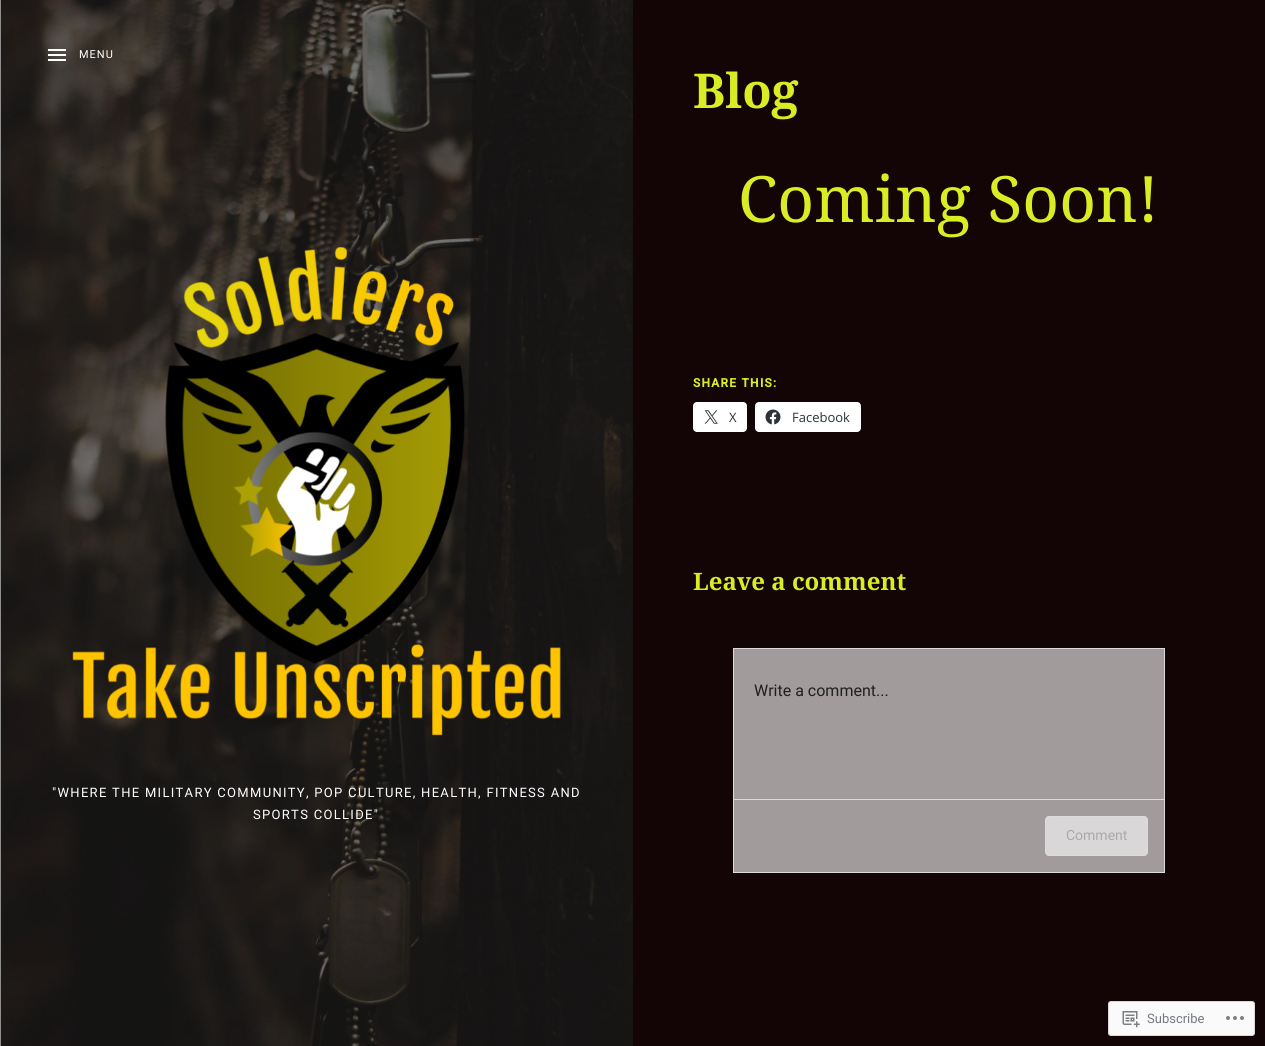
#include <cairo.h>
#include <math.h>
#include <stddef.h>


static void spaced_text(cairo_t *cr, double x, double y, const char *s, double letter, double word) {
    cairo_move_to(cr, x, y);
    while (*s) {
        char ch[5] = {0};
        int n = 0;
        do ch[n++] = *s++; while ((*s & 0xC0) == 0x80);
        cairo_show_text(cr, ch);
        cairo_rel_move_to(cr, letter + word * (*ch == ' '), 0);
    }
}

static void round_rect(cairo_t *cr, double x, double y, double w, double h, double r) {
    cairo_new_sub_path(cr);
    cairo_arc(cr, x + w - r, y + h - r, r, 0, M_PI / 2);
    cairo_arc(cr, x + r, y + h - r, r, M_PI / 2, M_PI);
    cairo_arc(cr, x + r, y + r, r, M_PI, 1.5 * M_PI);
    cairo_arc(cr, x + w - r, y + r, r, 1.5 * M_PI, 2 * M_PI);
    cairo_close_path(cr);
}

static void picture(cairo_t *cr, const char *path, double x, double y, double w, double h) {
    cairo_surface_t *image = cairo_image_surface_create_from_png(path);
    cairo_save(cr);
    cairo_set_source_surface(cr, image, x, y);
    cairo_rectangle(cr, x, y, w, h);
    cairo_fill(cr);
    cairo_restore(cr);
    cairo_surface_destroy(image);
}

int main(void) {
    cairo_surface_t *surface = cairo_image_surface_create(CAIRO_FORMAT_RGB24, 1265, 1046);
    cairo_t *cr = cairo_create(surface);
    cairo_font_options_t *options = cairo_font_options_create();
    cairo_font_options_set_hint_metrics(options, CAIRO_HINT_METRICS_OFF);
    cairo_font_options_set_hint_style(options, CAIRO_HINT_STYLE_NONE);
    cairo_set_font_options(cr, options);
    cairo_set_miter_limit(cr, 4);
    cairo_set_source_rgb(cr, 0.075, 0.016, 0.027);
    cairo_paint(cr);
    picture(cr, "img1.png", 1, 0, 632, 1046);
    cairo_set_source_rgb(cr, 0.561, 0.561, 0.561);
    cairo_rectangle(cr, 0, 0, 1, 1046);
    cairo_fill(cr);
    picture(cr, "img2.png", 48, 49, 18, 12);
    cairo_select_font_face(cr, "Roboto", CAIRO_FONT_SLANT_NORMAL, CAIRO_FONT_WEIGHT_NORMAL);
    cairo_set_font_size(cr, 11);
    cairo_set_source_rgb(cr, 1, 1, 1);
    spaced_text(cr, 79, 58, "MENU", 1, 0);
    picture(cr, "img3.png", 72, 246, 489, 490);
    cairo_set_font_size(cr, 13);
    spaced_text(cr, 52, 797, "\"WHERE THE MILITARY COMMUNITY, POP CULTURE, HEALTH, FITNESS AND", 1.3, 0);
    spaced_text(cr, 253, 819, "SPORTS COLLIDE\"", 1.3, 0);
    cairo_select_font_face(cr, "Noto Serif", CAIRO_FONT_SLANT_NORMAL, CAIRO_FONT_WEIGHT_BOLD);
    cairo_set_font_size(cr, 48);
    cairo_set_source_rgb(cr, 0.851, 0.929, 0.145);
    cairo_move_to(cr, 693, 108);
    cairo_show_text(cr, "Blog");
    cairo_select_font_face(cr, "Noto Serif", CAIRO_FONT_SLANT_NORMAL, CAIRO_FONT_WEIGHT_NORMAL);
    cairo_set_font_size(cr, 64);
    cairo_move_to(cr, 738, 222);
    cairo_show_text(cr, "Coming Soon!");
    cairo_select_font_face(cr, "Roboto", CAIRO_FONT_SLANT_NORMAL, CAIRO_FONT_WEIGHT_BOLD);
    cairo_set_font_size(cr, 12);
    spaced_text(cr, 693, 387, "SHARE THIS:", 1.25, 0);
    cairo_set_source_rgb(cr, 1, 1, 1);
    round_rect(cr, 693, 402, 54, 30, 4);
    cairo_fill(cr);
    picture(cr, "img4.png", 704, 410, 14, 14);
    cairo_select_font_face(cr, "Open Sans", CAIRO_FONT_SLANT_NORMAL, CAIRO_FONT_WEIGHT_NORMAL);
    cairo_set_font_size(cr, 13);
    cairo_set_source_rgb(cr, 0.173, 0.2, 0.22);
    cairo_move_to(cr, 729, 422);
    cairo_show_text(cr, "X");
    cairo_set_source_rgb(cr, 1, 1, 1);
    round_rect(cr, 755, 402, 106, 30, 4);
    cairo_fill(cr);
    picture(cr, "img5.png", 765, 409, 16, 16);
    cairo_set_source_rgb(cr, 0.173, 0.2, 0.22);
    cairo_move_to(cr, 792, 422);
    cairo_show_text(cr, "Facebook");
    cairo_select_font_face(cr, "Noto Serif", CAIRO_FONT_SLANT_NORMAL, CAIRO_FONT_WEIGHT_BOLD);
    cairo_set_font_size(cr, 24);
    cairo_set_source_rgb(cr, 0.851, 0.929, 0.145);
    cairo_move_to(cr, 693, 590);
    cairo_show_text(cr, "Leave a comment");
    cairo_set_source_rgb(cr, 0.631, 0.608, 0.612);
    cairo_rectangle(cr, 733.5, 648.5, 431, 224);
    cairo_fill_preserve(cr);
    cairo_set_source_rgb(cr, 0.863, 0.863, 0.871);
    cairo_set_line_width(cr, 1);
    cairo_stroke(cr);
    cairo_select_font_face(cr, "Roboto", CAIRO_FONT_SLANT_NORMAL, CAIRO_FONT_WEIGHT_NORMAL);
    cairo_set_font_size(cr, 16);
    cairo_set_source_rgb(cr, 0.125, 0.122, 0.122);
    cairo_move_to(cr, 754, 696);
    cairo_show_text(cr, "Write a comment...");
    cairo_set_source_rgb(cr, 0.863, 0.863, 0.871);
    cairo_rectangle(cr, 734, 799, 430, 1);
    cairo_fill(cr);
    cairo_set_source_rgb(cr, 0.851, 0.843, 0.843);
    round_rect(cr, 1045.5, 816.5, 102, 39, 3.5);
    cairo_fill_preserve(cr);
    cairo_set_source_rgb(cr, 0.863, 0.863, 0.871);
    cairo_stroke(cr);
    cairo_set_font_size(cr, 14);
    cairo_set_source_rgb(cr, 0.655, 0.667, 0.678);
    cairo_move_to(cr, 1066, 840);
    cairo_show_text(cr, "Comment");
    cairo_set_source_rgb(cr, 0.98, 0.98, 0.98);
    round_rect(cr, 1108.5, 1001.5, 146, 34, 2.5);
    cairo_fill_preserve(cr);
    cairo_set_source_rgb(cr, 0.847, 0.847, 0.855);
    cairo_stroke(cr);
    picture(cr, "img6.png", 1122, 1011, 18, 17);
    cairo_set_font_size(cr, 13);
    cairo_set_source_rgb(cr, 0.463, 0.478, 0.502);
    cairo_move_to(cr, 1147, 1023);
    cairo_show_text(cr, "Subscribe");
    picture(cr, "img7.png", 1226, 1016, 18, 4);
    cairo_surface_write_to_png(surface, "page.png");
    cairo_font_options_destroy(options);
    cairo_destroy(cr);
    cairo_surface_destroy(surface);
    return 0;
}
